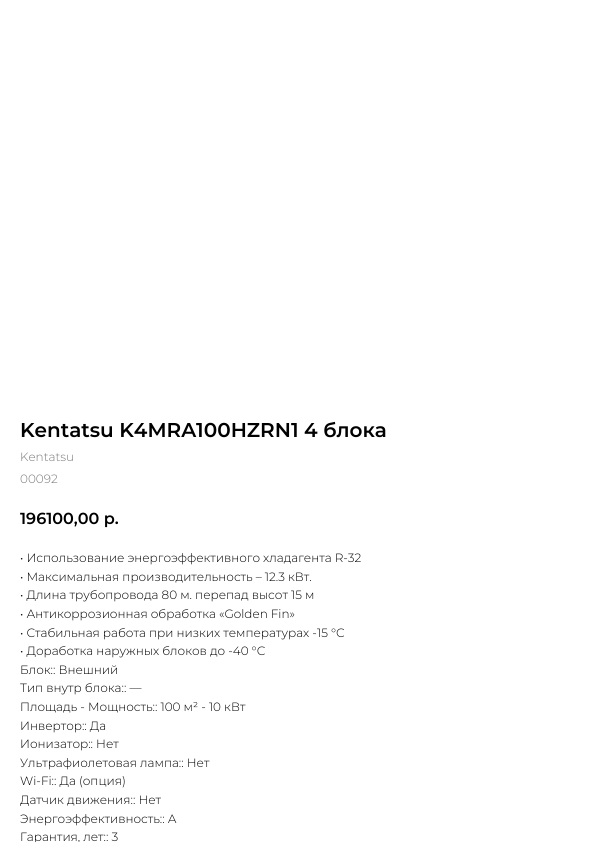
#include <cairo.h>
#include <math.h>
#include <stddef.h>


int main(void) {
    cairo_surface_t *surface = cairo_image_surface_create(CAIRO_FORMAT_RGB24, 598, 842);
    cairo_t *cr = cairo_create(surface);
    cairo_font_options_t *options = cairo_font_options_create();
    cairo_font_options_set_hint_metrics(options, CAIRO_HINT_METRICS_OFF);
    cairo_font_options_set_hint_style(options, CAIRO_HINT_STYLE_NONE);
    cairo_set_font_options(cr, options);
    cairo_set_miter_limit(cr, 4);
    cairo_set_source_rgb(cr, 1, 1, 1);
    cairo_paint(cr);
    cairo_select_font_face(cr, "Montserrat SemiBold", CAIRO_FONT_SLANT_NORMAL, CAIRO_FONT_WEIGHT_NORMAL);
    cairo_set_font_size(cr, 20);
    cairo_set_source_rgb(cr, 0, 0, 0);
    cairo_move_to(cr, 20, 437);
    cairo_show_text(cr, "Kentatsu K4MRA100HZRN1 4 блока");
    cairo_select_font_face(cr, "Montserrat Light", CAIRO_FONT_SLANT_NORMAL, CAIRO_FONT_WEIGHT_NORMAL);
    cairo_set_font_size(cr, 12);
    cairo_set_source_rgb(cr, 0.467, 0.467, 0.467);
    cairo_move_to(cr, 20, 461);
    cairo_show_text(cr, "Kentatsu");
    cairo_move_to(cr, 20, 483);
    cairo_show_text(cr, "00092");
    cairo_select_font_face(cr, "Montserrat SemiBold", CAIRO_FONT_SLANT_NORMAL, CAIRO_FONT_WEIGHT_NORMAL);
    cairo_set_font_size(cr, 16);
    cairo_set_source_rgb(cr, 0, 0, 0);
    cairo_move_to(cr, 20, 524);
    cairo_show_text(cr, "196100,00 р.");
    cairo_select_font_face(cr, "Montserrat Light", CAIRO_FONT_SLANT_NORMAL, CAIRO_FONT_WEIGHT_NORMAL);
    cairo_set_font_size(cr, 12);
    cairo_move_to(cr, 20, 562);
    cairo_show_text(cr, "• Использование энергоэффективного хладагента R-32");
    cairo_move_to(cr, 20, 581);
    cairo_show_text(cr, "• Максимальная производительность – 12.3 кВт.");
    cairo_move_to(cr, 20, 599);
    cairo_show_text(cr, "• Длина трубопровода 80 м. перепад высот 15 м");
    cairo_move_to(cr, 20, 618);
    cairo_show_text(cr, "• Антикоррозионная обработка «Golden Fin»");
    cairo_move_to(cr, 20, 637);
    cairo_show_text(cr, "• Стабильная работа при низких температурах -15 °С");
    cairo_move_to(cr, 20, 655);
    cairo_show_text(cr, "• Доработка наружных блоков до -40 °С");
    cairo_move_to(cr, 20, 674);
    cairo_show_text(cr, "Блок:: Внешний");
    cairo_move_to(cr, 20, 692);
    cairo_show_text(cr, "Тип внутр блока:: —");
    cairo_move_to(cr, 20, 711);
    cairo_show_text(cr, "Площадь - Мощность:: 100 м² - 10 кВт");
    cairo_move_to(cr, 20, 730);
    cairo_show_text(cr, "Инвертор:: Да");
    cairo_move_to(cr, 20, 748);
    cairo_show_text(cr, "Ионизатор:: Нет");
    cairo_move_to(cr, 20, 767);
    cairo_show_text(cr, "Ультрафиолетовая лампа:: Нет");
    cairo_move_to(cr, 20, 785);
    cairo_show_text(cr, "Wi-Fi:: Да (опция)");
    cairo_move_to(cr, 20, 804);
    cairo_show_text(cr, "Датчик движения:: Нет");
    cairo_move_to(cr, 20, 823);
    cairo_show_text(cr, "Энергоэффективность:: А");
    cairo_move_to(cr, 20, 841);
    cairo_show_text(cr, "Гарантия, лет:: 3");
    cairo_surface_write_to_png(surface, "page.png");
    cairo_font_options_destroy(options);
    cairo_destroy(cr);
    cairo_surface_destroy(surface);
    return 0;
}
